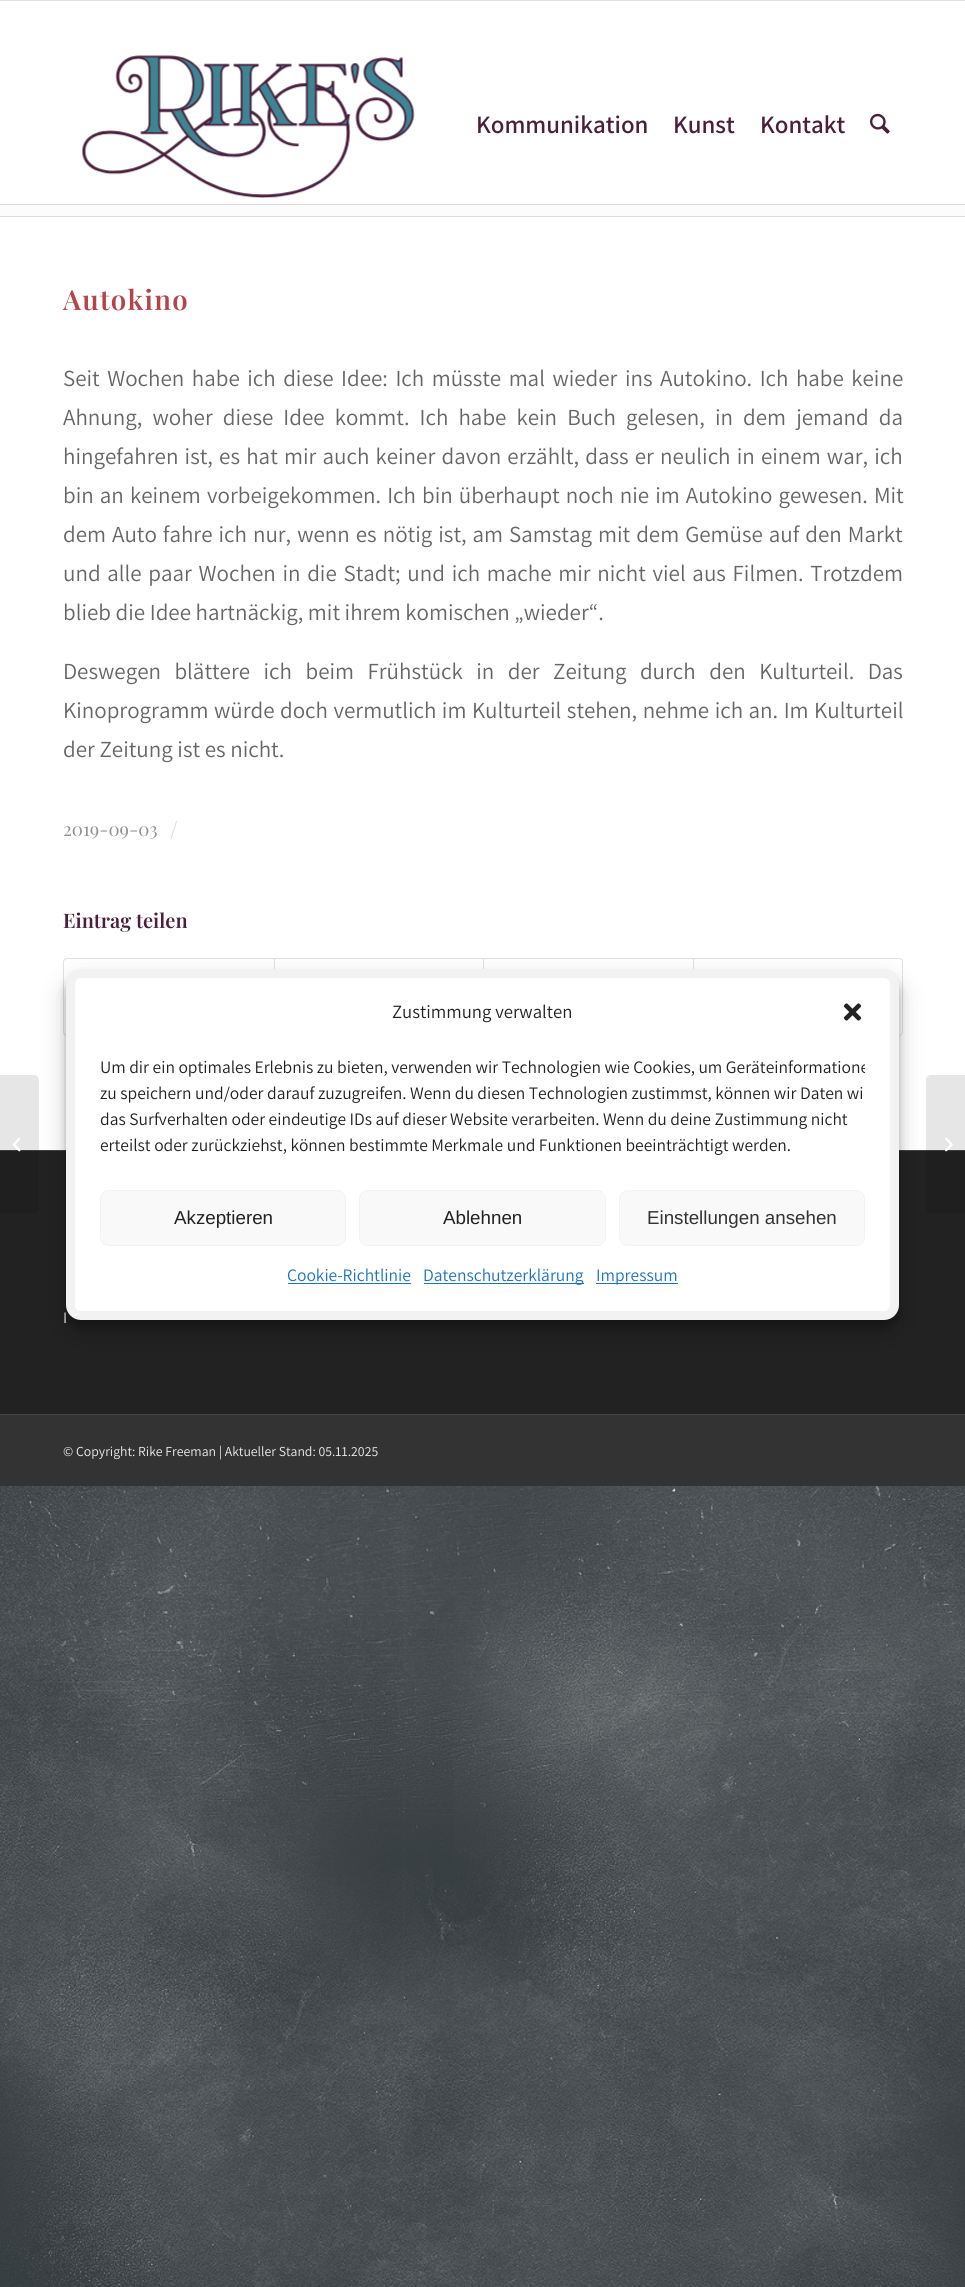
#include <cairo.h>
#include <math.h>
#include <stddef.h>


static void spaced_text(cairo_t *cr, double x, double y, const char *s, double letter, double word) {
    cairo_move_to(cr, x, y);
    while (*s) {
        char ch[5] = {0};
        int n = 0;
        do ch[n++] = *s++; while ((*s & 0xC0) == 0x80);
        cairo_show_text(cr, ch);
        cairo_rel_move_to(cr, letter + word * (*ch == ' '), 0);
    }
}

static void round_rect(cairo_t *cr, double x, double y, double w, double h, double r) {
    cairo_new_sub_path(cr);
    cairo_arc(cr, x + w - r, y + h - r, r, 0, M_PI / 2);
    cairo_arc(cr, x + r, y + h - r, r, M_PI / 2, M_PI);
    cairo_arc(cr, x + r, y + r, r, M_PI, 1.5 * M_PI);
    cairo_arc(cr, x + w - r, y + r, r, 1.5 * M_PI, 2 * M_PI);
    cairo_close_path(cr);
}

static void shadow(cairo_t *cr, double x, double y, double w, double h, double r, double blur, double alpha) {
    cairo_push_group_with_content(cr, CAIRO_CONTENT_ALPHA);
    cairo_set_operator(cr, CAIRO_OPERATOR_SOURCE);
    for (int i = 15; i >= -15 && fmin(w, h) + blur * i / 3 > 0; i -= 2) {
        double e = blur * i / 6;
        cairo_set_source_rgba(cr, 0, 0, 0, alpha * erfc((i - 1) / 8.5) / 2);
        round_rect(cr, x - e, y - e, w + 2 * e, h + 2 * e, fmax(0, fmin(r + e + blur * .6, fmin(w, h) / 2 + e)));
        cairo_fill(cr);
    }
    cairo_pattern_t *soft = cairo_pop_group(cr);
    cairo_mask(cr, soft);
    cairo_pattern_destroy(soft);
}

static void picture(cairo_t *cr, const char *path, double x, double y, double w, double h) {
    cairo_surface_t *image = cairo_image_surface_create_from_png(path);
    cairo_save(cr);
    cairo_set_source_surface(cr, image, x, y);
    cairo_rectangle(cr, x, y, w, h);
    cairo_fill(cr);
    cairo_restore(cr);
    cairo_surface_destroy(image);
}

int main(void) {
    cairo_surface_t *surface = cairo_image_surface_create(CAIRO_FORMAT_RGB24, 965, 2287);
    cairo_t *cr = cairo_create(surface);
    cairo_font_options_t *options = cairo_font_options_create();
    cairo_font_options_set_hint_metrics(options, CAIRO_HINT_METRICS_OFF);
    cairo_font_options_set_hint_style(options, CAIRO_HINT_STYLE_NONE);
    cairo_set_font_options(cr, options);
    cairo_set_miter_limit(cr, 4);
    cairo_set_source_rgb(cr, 0.212, 0.239, 0.251);
    cairo_paint(cr);
    picture(cr, "img1.png", 0, 1486, 965, 801);
    cairo_set_source_rgb(cr, 1, 1, 1);
    cairo_rectangle(cr, 0, 1, 965, 203);
    cairo_fill(cr);
    cairo_set_source_rgb(cr, 0.882, 0.882, 0.882);
    cairo_rectangle(cr, 0, 0, 965, 1);
    cairo_fill(cr);
    cairo_set_source_rgb(cr, 0.867, 0.867, 0.867);
    cairo_rectangle(cr, 0, 204, 965, 1);
    cairo_fill(cr);
    picture(cr, "img2.png", 82, 55, 333, 143);
    cairo_select_font_face(cr, "Assistant SemiBold", CAIRO_FONT_SLANT_NORMAL, CAIRO_FONT_WEIGHT_NORMAL);
    cairo_set_font_size(cr, 25);
    cairo_set_source_rgb(cr, 0.286, 0.122, 0.235);
    cairo_move_to(cr, 476, 133);
    cairo_show_text(cr, "Kommunikation");
    cairo_move_to(cr, 673, 133);
    cairo_show_text(cr, "Kunst");
    cairo_move_to(cr, 760, 133);
    cairo_show_text(cr, "Kontakt");
    picture(cr, "img3.png", 870, 113, 20, 21);
    cairo_set_source_rgb(cr, 1, 1, 1);
    cairo_rectangle(cr, 0, 217, 965, 933);
    cairo_fill(cr);
    cairo_set_source_rgb(cr, 0.133, 0.133, 0.133);
    cairo_rectangle(cr, 0, 1151, 965, 263);
    cairo_fill(cr);
    cairo_set_source_rgb(cr, 0.267, 0.267, 0.267);
    cairo_rectangle(cr, 0, 1150, 965, 1);
    cairo_fill(cr);
    cairo_set_source_rgba(cr, 0, 0, 0, 0.1);
    cairo_new_path(cr);
    cairo_move_to(cr, 0, 1075);
    cairo_line_to(cr, 34, 1075);
    cairo_curve_to(cr, 37, 1075, 39, 1077, 39, 1080);
    cairo_line_to(cr, 39, 1208);
    cairo_curve_to(cr, 39, 1211, 37, 1213, 34, 1213);
    cairo_line_to(cr, 0, 1213);
    cairo_close_path(cr);
    cairo_fill(cr);
    picture(cr, "img4.png", 12, 1137, 9, 15);
    cairo_set_source_rgb(cr, 0.988, 0.988, 0.988);
    cairo_rectangle(cr, 0, 205, 965, 11);
    cairo_fill(cr);
    cairo_set_source_rgb(cr, 0.867, 0.867, 0.867);
    cairo_rectangle(cr, 0, 216, 965, 1);
    cairo_fill(cr);
    cairo_select_font_face(cr, "Playfair Display SemiBold", CAIRO_FONT_SLANT_NORMAL, CAIRO_FONT_WEIGHT_NORMAL);
    cairo_set_font_size(cr, 27.5);
    cairo_set_source_rgb(cr, 0.702, 0.271, 0.29);
    spaced_text(cr, 63, 310, "Autokino", 1.25, 0);
    cairo_select_font_face(cr, "Assistant", CAIRO_FONT_SLANT_NORMAL, CAIRO_FONT_WEIGHT_NORMAL);
    cairo_set_font_size(cr, 23);
    cairo_set_source_rgb(cr, 0.4, 0.4, 0.4);
    spaced_text(cr, 63, 386, "Seit Wochen habe ich diese Idee: Ich müsste mal wieder ins Autokino. Ich habe keine", 0, 2.9);
    spaced_text(cr, 63, 425, "Ahnung, woher diese Idee kommt. Ich habe kein Buch gelesen, in dem jemand da", 0, 5.5);
    spaced_text(cr, 63, 464, "hingefahren ist, es hat mir auch keiner davon erzählt, dass er neulich in einem war, ich", 0, 1.6);
    spaced_text(cr, 63, 503, "bin an keinem vorbeigekommen. Ich bin überhaupt noch nie im Autokino gewesen. Mit", 0, 1.5);
    spaced_text(cr, 63, 542, "dem Auto fahre ich nur, wenn es nötig ist, am Samstag mit dem Gemüse auf den Markt", 0, 1.4);
    spaced_text(cr, 63, 581, "und alle paar Wochen in die Stadt; und ich mache mir nicht viel aus Filmen. Trotzdem", 0, 2.1);
    cairo_move_to(cr, 63, 620);
    cairo_show_text(cr, "blieb die Idee hartnäckig, mit ihrem komischen „wieder“.");
    spaced_text(cr, 63, 679, "Deswegen blättere ich beim Frühstück in der Zeitung durch den Kulturteil. Das", 0, 8.9);
    spaced_text(cr, 63, 718, "Kinoprogramm würde doch vermutlich im Kulturteil stehen, nehme ich an. Im Kulturteil", 0, 0.9);
    cairo_move_to(cr, 63, 757);
    cairo_show_text(cr, "der Zeitung ist es nicht.");
    cairo_select_font_face(cr, "Playfair Display", CAIRO_FONT_SLANT_NORMAL, CAIRO_FONT_WEIGHT_NORMAL);
    cairo_set_font_size(cr, 18.5);
    cairo_set_source_rgb(cr, 0.569, 0.569, 0.569);
    cairo_move_to(cr, 63, 836);
    cairo_show_text(cr, "2019-09-03");
    cairo_select_font_face(cr, "Assistant", CAIRO_FONT_SLANT_NORMAL, CAIRO_FONT_WEIGHT_NORMAL);
    cairo_set_font_size(cr, 21);
    cairo_set_source_rgb(cr, 0.871, 0.871, 0.871);
    cairo_move_to(cr, 170, 836);
    cairo_show_text(cr, "/");
    cairo_select_font_face(cr, "Playfair Display SemiBold", CAIRO_FONT_SLANT_NORMAL, CAIRO_FONT_WEIGHT_NORMAL);
    cairo_set_font_size(cr, 20);
    cairo_set_source_rgb(cr, 0.286, 0.122, 0.235);
    cairo_move_to(cr, 63, 928);
    cairo_show_text(cr, "Eintrag teilen");
    round_rect(cr, 63.5, 958.5, 839, 77, 3.5);
    cairo_set_source_rgb(cr, 0.882, 0.882, 0.882);
    cairo_set_line_width(cr, 1);
    cairo_stroke(cr);
    cairo_rectangle(cr, 274, 959, 1, 10);
    cairo_fill(cr);
    cairo_rectangle(cr, 483, 959, 1, 10);
    cairo_fill(cr);
    cairo_rectangle(cr, 693, 959, 1, 10);
    cairo_fill(cr);
    cairo_select_font_face(cr, "Assistant", CAIRO_FONT_SLANT_NORMAL, CAIRO_FONT_WEIGHT_NORMAL);
    cairo_set_font_size(cr, 16);
    cairo_set_source_rgb(cr, 1, 1, 1);
    cairo_move_to(cr, 63, 1323);
    cairo_show_text(cr, "I");
    cairo_set_source_rgb(cr, 0.2, 0.2, 0.2);
    cairo_rectangle(cr, 0, 1415, 965, 71);
    cairo_fill(cr);
    cairo_set_source_rgb(cr, 0.267, 0.267, 0.267);
    cairo_rectangle(cr, 0, 1414, 965, 1);
    cairo_fill(cr);
    cairo_set_font_size(cr, 13.75);
    cairo_set_source_rgb(cr, 0.933, 0.933, 0.933);
    cairo_move_to(cr, 63, 1456);
    cairo_show_text(cr, "© Copyright: Rike Freeman | Aktueller Stand: 05.11.2025");
    cairo_set_source_rgba(cr, 0, 0, 0, 0.1);
    cairo_new_path(cr);
    cairo_move_to(cr, 931, 1075);
    cairo_line_to(cr, 965, 1075);
    cairo_line_to(cr, 965, 1213);
    cairo_line_to(cr, 931, 1213);
    cairo_curve_to(cr, 928, 1213, 926, 1211, 926, 1208);
    cairo_line_to(cr, 926, 1080);
    cairo_curve_to(cr, 926, 1077, 928, 1075, 931, 1075);
    cairo_close_path(cr);
    cairo_fill(cr);
    picture(cr, "img5.png", 945, 1137, 8, 15);
    cairo_set_source_rgb(cr, 0, 0, 0);
    shadow(cr, 66, 976, 833, 352, 15, 4, 0.23);
    shadow(cr, 66, 981, 833, 352, 15, 12.5, 0.19);
    cairo_set_source_rgb(cr, 1, 1, 1);
    round_rect(cr, 70.5, 973.5, 824, 342, 10.5);
    cairo_fill_preserve(cr);
    cairo_set_source_rgb(cr, 0.949, 0.949, 0.949);
    cairo_set_line_width(cr, 9);
    cairo_stroke(cr);
    cairo_set_font_size(cr, 18.75);
    cairo_set_source_rgb(cr, 0.133, 0.133, 0.133);
    cairo_move_to(cr, 392, 1018);
    cairo_show_text(cr, "Zustimmung verwalten");
    picture(cr, "img6.png", 843, 1003, 19, 18);
    cairo_save(cr);
    cairo_rectangle(cr, 100, 1054, 765, 111);
    cairo_clip(cr);
    cairo_set_font_size(cr, 17.5);
    cairo_move_to(cr, 100, 1073);
    cairo_show_text(cr, "Um dir ein optimales Erlebnis zu bieten, verwenden wir Technologien wie Cookies, um Geräteinformatione");
    cairo_restore(cr);
    cairo_set_font_size(cr, 17.5);
    cairo_move_to(cr, 100, 1099);
    cairo_show_text(cr, "zu speichern und/oder darauf zuzugreifen. Wenn du diesen Technologien zustimmst, können wir Daten wi");
    cairo_move_to(cr, 100, 1125);
    cairo_show_text(cr, "das Surfverhalten oder eindeutige IDs auf dieser Website verarbeiten. Wenn du deine Zustimmung nicht");
    cairo_move_to(cr, 100, 1151);
    cairo_show_text(cr, "erteilst oder zurückziehst, können bestimmte Merkmale und Funktionen beeinträchtigt werden.");
    cairo_set_source_rgb(cr, 0.976, 0.976, 0.976);
    round_rect(cr, 100.5, 1190.5, 245, 55, 8.5);
    cairo_fill_preserve(cr);
    cairo_set_source_rgb(cr, 0.949, 0.949, 0.949);
    cairo_set_line_width(cr, 1);
    cairo_stroke(cr);
    cairo_select_font_face(cr, "Liberation Sans", CAIRO_FONT_SLANT_NORMAL, CAIRO_FONT_WEIGHT_NORMAL);
    cairo_set_font_size(cr, 18.75);
    cairo_set_source_rgb(cr, 0.133, 0.133, 0.133);
    cairo_move_to(cr, 174, 1224);
    cairo_show_text(cr, "Akzeptieren");
    cairo_set_source_rgb(cr, 0.976, 0.976, 0.976);
    round_rect(cr, 359.5, 1190.5, 246, 55, 8.5);
    cairo_fill_preserve(cr);
    cairo_set_source_rgb(cr, 0.949, 0.949, 0.949);
    cairo_stroke(cr);
    cairo_set_source_rgb(cr, 0.133, 0.133, 0.133);
    cairo_move_to(cr, 443, 1224);
    cairo_show_text(cr, "Ablehnen");
    cairo_set_source_rgb(cr, 0.976, 0.976, 0.976);
    round_rect(cr, 619.5, 1190.5, 245, 55, 8.5);
    cairo_fill_preserve(cr);
    cairo_set_source_rgb(cr, 0.949, 0.949, 0.949);
    cairo_stroke(cr);
    cairo_set_source_rgb(cr, 0.2, 0.2, 0.2);
    cairo_move_to(cr, 647, 1224);
    cairo_show_text(cr, "Einstellungen ansehen");
    cairo_select_font_face(cr, "Assistant", CAIRO_FONT_SLANT_NORMAL, CAIRO_FONT_WEIGHT_NORMAL);
    cairo_set_font_size(cr, 17.5);
    cairo_set_source_rgb(cr, 0.118, 0.451, 0.745);
    cairo_move_to(cr, 287, 1281);
    cairo_show_text(cr, "Cookie-Richtlinie");
    cairo_rectangle(cr, 288, 1283, 123, 1);
    cairo_fill(cr);
    cairo_rectangle(cr, 424, 1283, 160, 1);
    cairo_fill(cr);
    cairo_move_to(cr, 423, 1281);
    cairo_show_text(cr, "Datenschutzerklärung");
    cairo_rectangle(cr, 596, 1283, 82, 1);
    cairo_fill(cr);
    cairo_move_to(cr, 596, 1281);
    cairo_show_text(cr, "Impressum");
    cairo_surface_write_to_png(surface, "page.png");
    cairo_font_options_destroy(options);
    cairo_destroy(cr);
    cairo_surface_destroy(surface);
    return 0;
}
